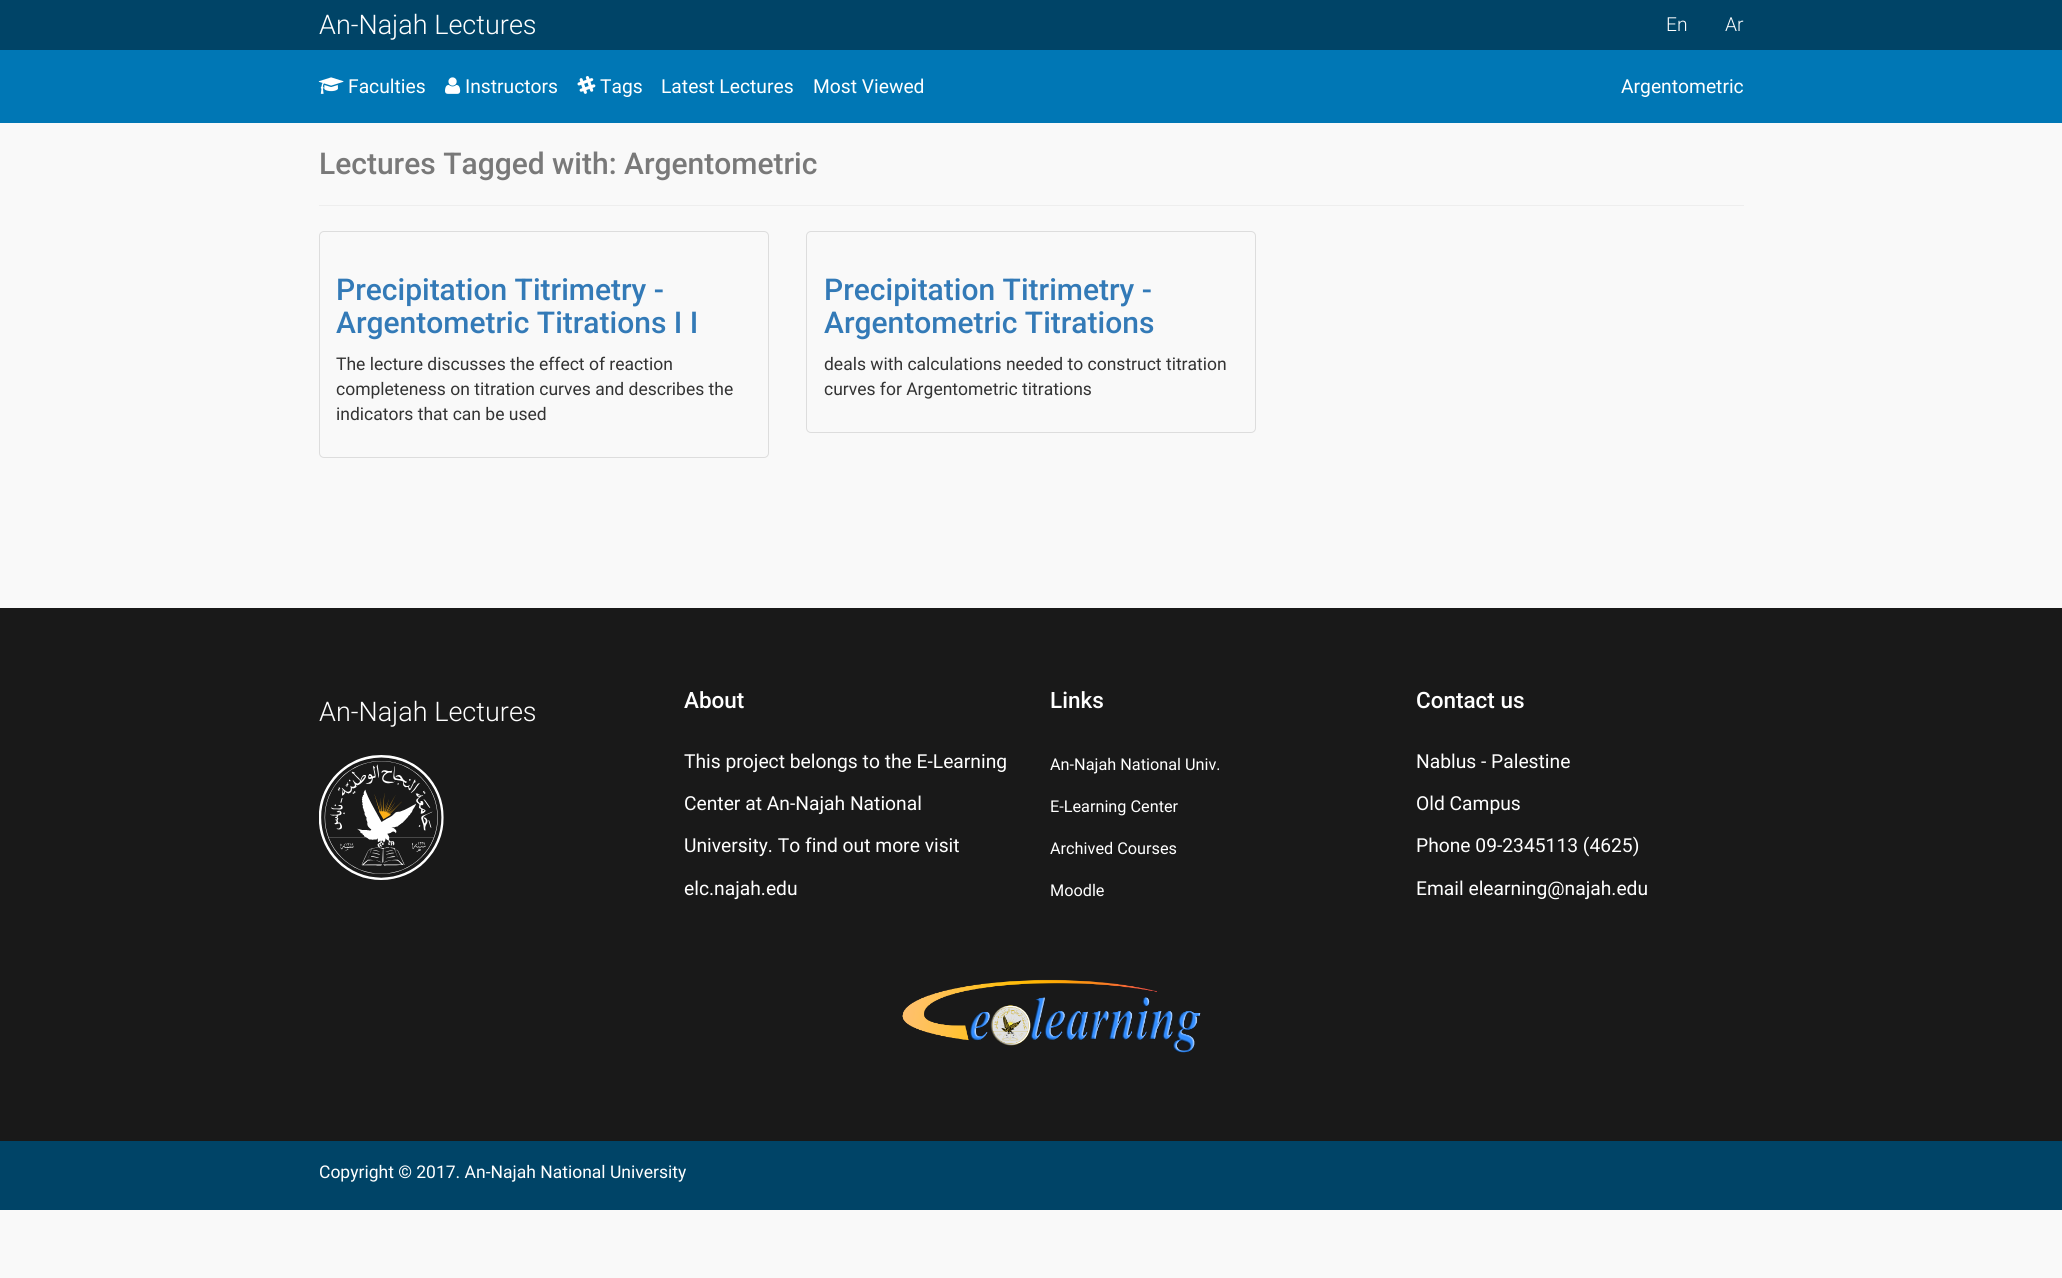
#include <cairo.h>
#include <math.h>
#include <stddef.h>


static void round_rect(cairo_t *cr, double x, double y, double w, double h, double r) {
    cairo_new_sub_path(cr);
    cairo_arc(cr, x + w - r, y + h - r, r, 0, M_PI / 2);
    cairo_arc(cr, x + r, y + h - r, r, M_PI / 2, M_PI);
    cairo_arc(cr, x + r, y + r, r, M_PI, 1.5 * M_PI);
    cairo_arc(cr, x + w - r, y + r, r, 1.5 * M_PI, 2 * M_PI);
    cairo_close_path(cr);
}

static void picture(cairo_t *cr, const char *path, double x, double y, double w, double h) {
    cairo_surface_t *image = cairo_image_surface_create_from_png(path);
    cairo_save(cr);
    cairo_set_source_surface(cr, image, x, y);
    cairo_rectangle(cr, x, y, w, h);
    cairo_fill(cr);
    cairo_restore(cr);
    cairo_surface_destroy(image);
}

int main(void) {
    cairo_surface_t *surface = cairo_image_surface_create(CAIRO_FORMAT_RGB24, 2062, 1278);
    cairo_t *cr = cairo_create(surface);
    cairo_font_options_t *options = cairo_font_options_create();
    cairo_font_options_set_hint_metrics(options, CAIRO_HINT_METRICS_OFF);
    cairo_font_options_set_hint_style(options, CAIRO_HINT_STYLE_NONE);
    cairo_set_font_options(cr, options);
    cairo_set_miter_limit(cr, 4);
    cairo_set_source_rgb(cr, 0.973, 0.973, 0.973);
    cairo_paint(cr);
    cairo_set_source_rgb(cr, 0, 0.267, 0.404);
    cairo_rectangle(cr, 0, 0, 2062, 50);
    cairo_fill(cr);
    cairo_select_font_face(cr, "Roboto Light", CAIRO_FONT_SLANT_NORMAL, CAIRO_FONT_WEIGHT_NORMAL);
    cairo_set_font_size(cr, 27);
    cairo_set_source_rgb(cr, 1, 1, 1);
    cairo_move_to(cr, 319, 34);
    cairo_show_text(cr, "An-Najah Lectures");
    cairo_set_font_size(cr, 19.25);
    cairo_move_to(cr, 1666, 31);
    cairo_show_text(cr, "En");
    cairo_move_to(cr, 1725, 31);
    cairo_show_text(cr, "Ar");
    cairo_set_source_rgb(cr, 0, 0.467, 0.71);
    cairo_rectangle(cr, 0, 50, 2062, 73);
    cairo_fill(cr);
    picture(cr, "img1.png", 318, 77, 26, 17);
    cairo_select_font_face(cr, "Roboto", CAIRO_FONT_SLANT_NORMAL, CAIRO_FONT_WEIGHT_NORMAL);
    cairo_set_source_rgb(cr, 1, 1, 1);
    cairo_move_to(cr, 348, 93);
    cairo_show_text(cr, "Faculties");
    picture(cr, "img2.png", 445, 77, 16, 17);
    cairo_move_to(cr, 465, 93);
    cairo_show_text(cr, "Instructors");
    picture(cr, "img3.png", 577, 76, 19, 18);
    cairo_move_to(cr, 600, 93);
    cairo_show_text(cr, "Tags");
    cairo_move_to(cr, 661, 93);
    cairo_show_text(cr, "Latest Lectures");
    cairo_move_to(cr, 813, 93);
    cairo_show_text(cr, "Most Viewed");
    cairo_move_to(cr, 1621, 93);
    cairo_show_text(cr, "Argentometric");
    cairo_select_font_face(cr, "Roboto Medium", CAIRO_FONT_SLANT_NORMAL, CAIRO_FONT_WEIGHT_NORMAL);
    cairo_set_font_size(cr, 30);
    cairo_set_source_rgb(cr, 0.475, 0.475, 0.475);
    cairo_move_to(cr, 319, 174);
    cairo_show_text(cr, "Lectures Tagged with: Argentometric");
    cairo_set_source_rgb(cr, 0.933, 0.933, 0.933);
    cairo_rectangle(cr, 319, 205, 1425, 1);
    cairo_fill(cr);
    round_rect(cr, 319.5, 231.5, 449, 226, 4.5);
    cairo_set_source_rgb(cr, 0.867, 0.867, 0.867);
    cairo_set_line_width(cr, 1);
    cairo_stroke(cr);
    cairo_set_source_rgb(cr, 0.2, 0.478, 0.718);
    cairo_move_to(cr, 336, 300);
    cairo_show_text(cr, "Precipitation Titrimetry -");
    cairo_move_to(cr, 336, 333);
    cairo_show_text(cr, "Argentometric Titrations I I");
    cairo_select_font_face(cr, "Roboto", CAIRO_FONT_SLANT_NORMAL, CAIRO_FONT_WEIGHT_NORMAL);
    cairo_set_font_size(cr, 17.5);
    cairo_set_source_rgb(cr, 0.2, 0.2, 0.2);
    cairo_move_to(cr, 336, 370);
    cairo_show_text(cr, "The lecture discusses the effect of reaction");
    cairo_move_to(cr, 336, 395);
    cairo_show_text(cr, "completeness on titration curves and describes the");
    cairo_move_to(cr, 336, 420);
    cairo_show_text(cr, "indicators that can be used");
    round_rect(cr, 806.5, 231.5, 449, 201, 4.5);
    cairo_set_source_rgb(cr, 0.867, 0.867, 0.867);
    cairo_stroke(cr);
    cairo_select_font_face(cr, "Roboto Medium", CAIRO_FONT_SLANT_NORMAL, CAIRO_FONT_WEIGHT_NORMAL);
    cairo_set_font_size(cr, 30);
    cairo_set_source_rgb(cr, 0.2, 0.478, 0.718);
    cairo_move_to(cr, 824, 300);
    cairo_show_text(cr, "Precipitation Titrimetry -");
    cairo_move_to(cr, 824, 333);
    cairo_show_text(cr, "Argentometric Titrations");
    cairo_select_font_face(cr, "Roboto", CAIRO_FONT_SLANT_NORMAL, CAIRO_FONT_WEIGHT_NORMAL);
    cairo_set_font_size(cr, 17.5);
    cairo_set_source_rgb(cr, 0.2, 0.2, 0.2);
    cairo_move_to(cr, 824, 370);
    cairo_show_text(cr, "deals with calculations needed to construct titration");
    cairo_move_to(cr, 824, 395);
    cairo_show_text(cr, "curves for Argentometric titrations");
    cairo_set_source_rgb(cr, 0.098, 0.098, 0.098);
    cairo_rectangle(cr, 0, 608, 2062, 533);
    cairo_fill(cr);
    cairo_select_font_face(cr, "Roboto Light", CAIRO_FONT_SLANT_NORMAL, CAIRO_FONT_WEIGHT_NORMAL);
    cairo_set_font_size(cr, 27);
    cairo_set_source_rgb(cr, 1, 1, 1);
    cairo_move_to(cr, 319, 721);
    cairo_show_text(cr, "An-Najah Lectures");
    picture(cr, "img4.png", 319, 755, 125, 125);
    cairo_select_font_face(cr, "Roboto Medium", CAIRO_FONT_SLANT_NORMAL, CAIRO_FONT_WEIGHT_NORMAL);
    cairo_set_font_size(cr, 22.5);
    cairo_move_to(cr, 684, 708);
    cairo_show_text(cr, "About");
    cairo_select_font_face(cr, "Roboto", CAIRO_FONT_SLANT_NORMAL, CAIRO_FONT_WEIGHT_NORMAL);
    cairo_set_font_size(cr, 19.25);
    cairo_move_to(cr, 684, 768);
    cairo_show_text(cr, "This project belongs to the E-Learning");
    cairo_move_to(cr, 684, 810);
    cairo_show_text(cr, "Center at An-Najah National");
    cairo_move_to(cr, 684, 852);
    cairo_show_text(cr, "University. To find out more visit");
    cairo_move_to(cr, 684, 895);
    cairo_show_text(cr, "elc.najah.edu");
    cairo_select_font_face(cr, "Roboto Medium", CAIRO_FONT_SLANT_NORMAL, CAIRO_FONT_WEIGHT_NORMAL);
    cairo_set_font_size(cr, 22.5);
    cairo_move_to(cr, 1050, 708);
    cairo_show_text(cr, "Links");
    cairo_select_font_face(cr, "Roboto", CAIRO_FONT_SLANT_NORMAL, CAIRO_FONT_WEIGHT_NORMAL);
    cairo_set_font_size(cr, 16.25);
    cairo_move_to(cr, 1050, 770);
    cairo_show_text(cr, "An-Najah National Univ.");
    cairo_move_to(cr, 1050, 812);
    cairo_show_text(cr, "E-Learning Center");
    cairo_move_to(cr, 1050, 854);
    cairo_show_text(cr, "Archived Courses");
    cairo_move_to(cr, 1050, 896);
    cairo_show_text(cr, "Moodle");
    cairo_select_font_face(cr, "Roboto Medium", CAIRO_FONT_SLANT_NORMAL, CAIRO_FONT_WEIGHT_NORMAL);
    cairo_set_font_size(cr, 22.5);
    cairo_move_to(cr, 1416, 708);
    cairo_show_text(cr, "Contact us");
    cairo_select_font_face(cr, "Roboto", CAIRO_FONT_SLANT_NORMAL, CAIRO_FONT_WEIGHT_NORMAL);
    cairo_set_font_size(cr, 19.25);
    cairo_move_to(cr, 1416, 768);
    cairo_show_text(cr, "Nablus - Palestine");
    cairo_move_to(cr, 1416, 810);
    cairo_show_text(cr, "Old Campus");
    cairo_move_to(cr, 1416, 852);
    cairo_show_text(cr, "Phone 09-2345113 (4625)");
    cairo_move_to(cr, 1416, 895);
    cairo_show_text(cr, "Email elearning@najah.edu");
    picture(cr, "img5.png", 902, 979, 299, 74);
    cairo_set_source_rgb(cr, 0, 0.267, 0.404);
    cairo_rectangle(cr, 0, 1141, 2062, 69);
    cairo_fill(cr);
    cairo_set_font_size(cr, 17.5);
    cairo_set_source_rgb(cr, 1, 1, 1);
    cairo_move_to(cr, 319, 1178);
    cairo_show_text(cr, "Copyright © 2017. An-Najah National University");
    cairo_surface_write_to_png(surface, "page.png");
    cairo_font_options_destroy(options);
    cairo_destroy(cr);
    cairo_surface_destroy(surface);
    return 0;
}
